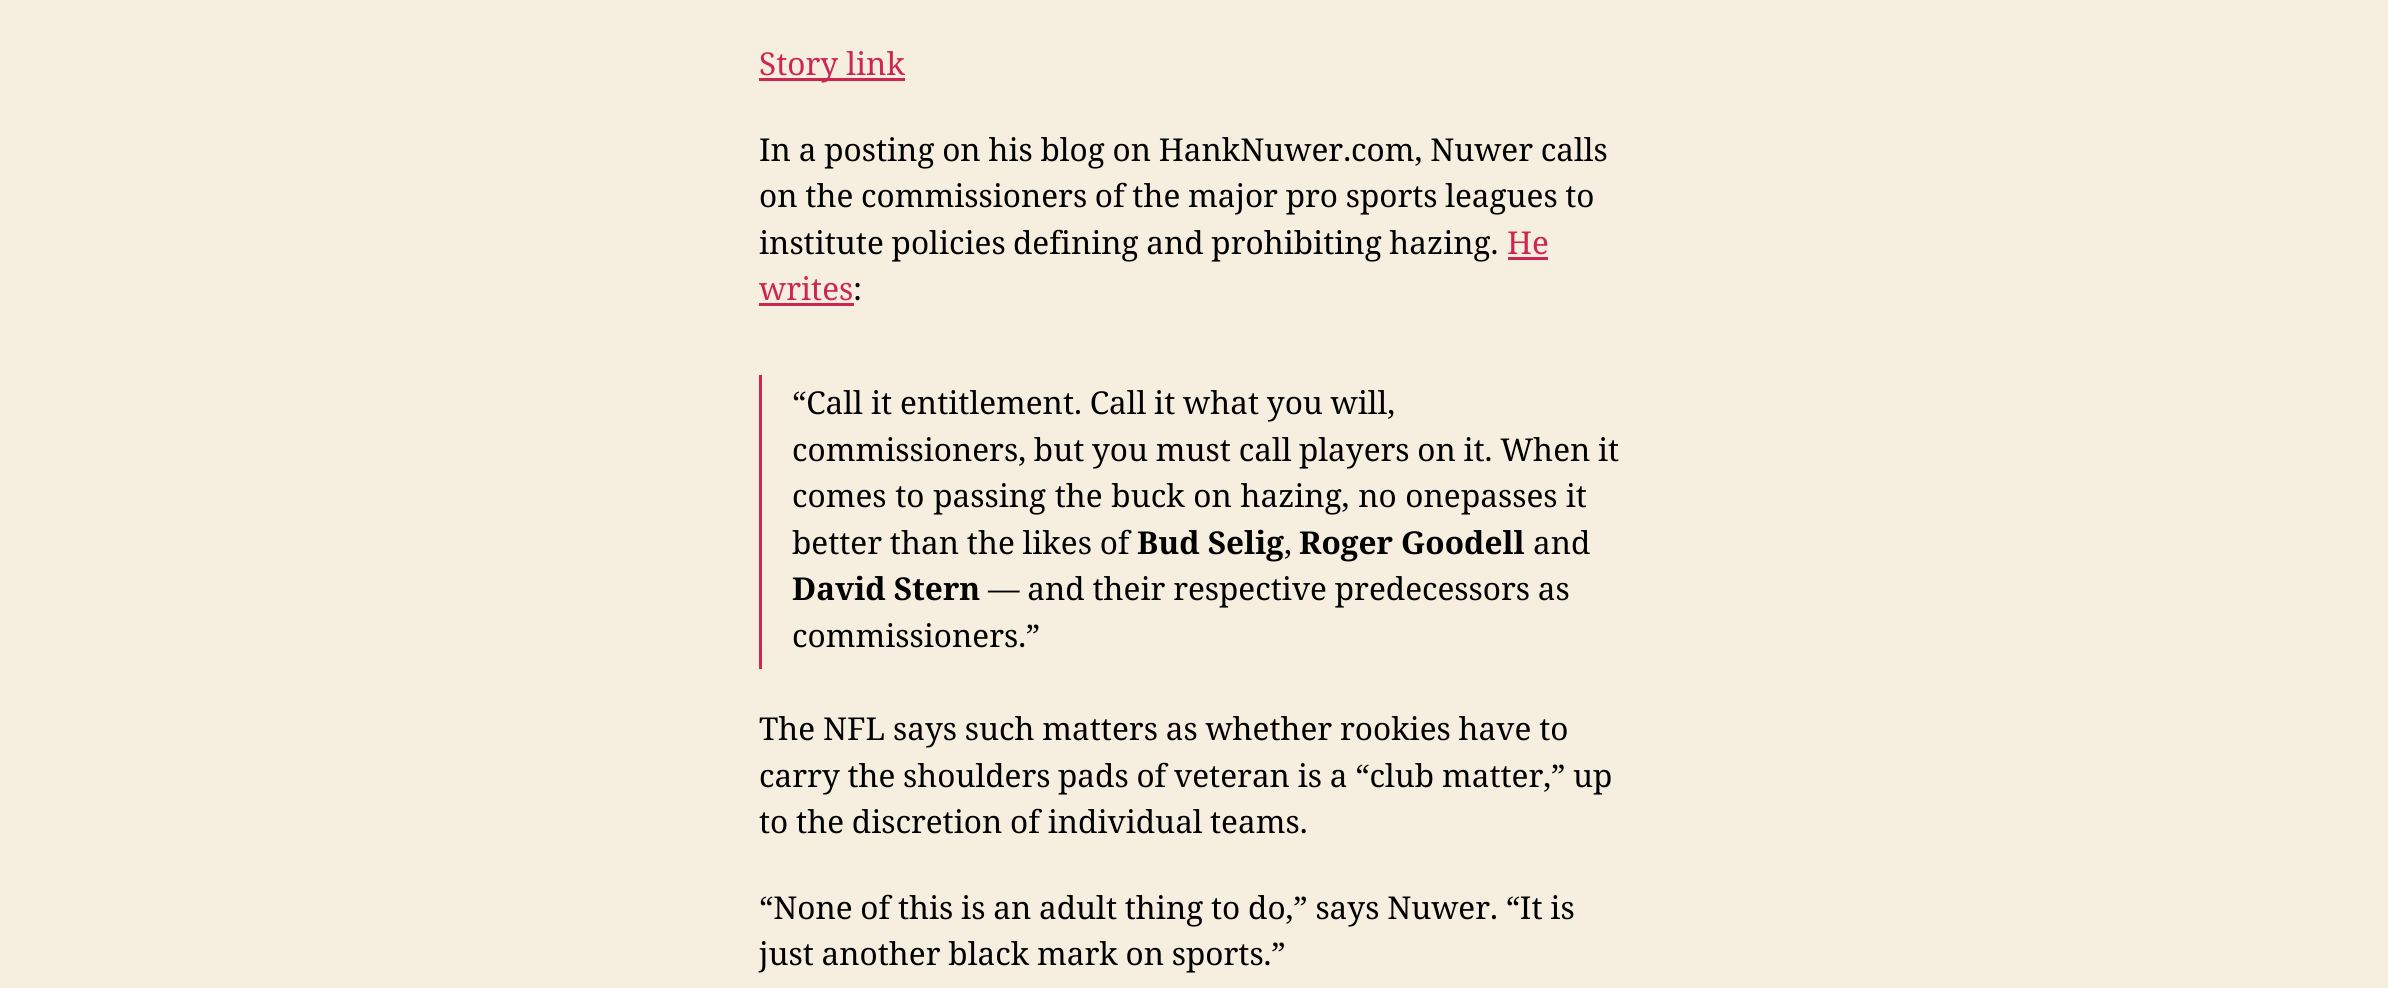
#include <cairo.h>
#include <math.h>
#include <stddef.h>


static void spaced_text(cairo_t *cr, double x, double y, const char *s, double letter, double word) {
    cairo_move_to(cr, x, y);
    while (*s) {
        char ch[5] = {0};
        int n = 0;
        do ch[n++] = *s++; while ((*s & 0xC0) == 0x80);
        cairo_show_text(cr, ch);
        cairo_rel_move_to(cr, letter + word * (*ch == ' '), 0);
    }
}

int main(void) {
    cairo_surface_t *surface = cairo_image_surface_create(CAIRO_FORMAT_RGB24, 2388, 988);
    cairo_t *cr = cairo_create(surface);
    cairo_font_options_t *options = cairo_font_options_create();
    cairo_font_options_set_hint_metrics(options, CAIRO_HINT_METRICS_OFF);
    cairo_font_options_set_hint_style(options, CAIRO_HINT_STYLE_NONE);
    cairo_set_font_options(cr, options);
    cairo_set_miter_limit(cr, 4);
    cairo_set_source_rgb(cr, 0.961, 0.937, 0.878);
    cairo_paint(cr);
    cairo_set_source_rgb(cr, 0.804, 0.149, 0.325);
    cairo_rectangle(cr, 759, 78, 146, 3);
    cairo_fill(cr);
    cairo_select_font_face(cr, "Noto Serif", CAIRO_FONT_SLANT_NORMAL, CAIRO_FONT_WEIGHT_NORMAL);
    cairo_set_font_size(cr, 31.5);
    cairo_move_to(cr, 759, 75);
    cairo_show_text(cr, "Story link");
    cairo_set_source_rgb(cr, 0, 0, 0);
    spaced_text(cr, 759, 161, "In a posting on his blog on HankNuwer.com, Nuwer calls", 0, -0.4);
    spaced_text(cr, 759, 207, "on the", 0, -0.4);
    spaced_text(cr, 861, 207, "commissioners of the major pro sports leagues to", 0, -0.5);
    spaced_text(cr, 759, 254, "institute policies", 0, -0.4);
    spaced_text(cr, 1013, 254, "defining and prohibiting hazing.", 0, -0.5);
    cairo_set_source_rgb(cr, 0.804, 0.149, 0.325);
    cairo_move_to(cr, 1507, 254);
    cairo_show_text(cr, "He");
    cairo_rectangle(cr, 1508, 257, 40, 3);
    cairo_fill(cr);
    cairo_move_to(cr, 759, 300);
    cairo_show_text(cr, "writes");
    cairo_rectangle(cr, 759, 303, 95, 3);
    cairo_fill(cr);
    cairo_set_source_rgb(cr, 0, 0, 0);
    cairo_move_to(cr, 853, 300);
    cairo_show_text(cr, ":");
    cairo_set_source_rgb(cr, 0.804, 0.149, 0.325);
    cairo_rectangle(cr, 759, 375, 3, 294);
    cairo_fill(cr);
    cairo_set_source_rgb(cr, 0, 0, 0);
    cairo_move_to(cr, 792, 414);
    cairo_show_text(cr, "“Call");
    spaced_text(cr, 871, 414, "it entitlement. Call it what you will,", 0, -0.4);
    spaced_text(cr, 792, 461, "commissioners, but you must call", 0, -0.4);
    spaced_text(cr, 1299, 461, "players on it. When it", 0, -0.5);
    spaced_text(cr, 792, 507, "comes to passing the buck on hazing, no one", 0, 0.5);
    cairo_move_to(cr, 1461, 507);
    cairo_show_text(cr, "passes it");
    spaced_text(cr, 792, 554, "better than the likes of", 0, -0.4);
    cairo_select_font_face(cr, "Noto Serif", CAIRO_FONT_SLANT_NORMAL, CAIRO_FONT_WEIGHT_BOLD);
    cairo_move_to(cr, 1137, 554);
    cairo_show_text(cr, "Bud Selig");
    cairo_select_font_face(cr, "Noto Serif", CAIRO_FONT_SLANT_NORMAL, CAIRO_FONT_WEIGHT_NORMAL);
    cairo_move_to(cr, 1284, 554);
    cairo_show_text(cr, ",");
    cairo_select_font_face(cr, "Noto Serif", CAIRO_FONT_SLANT_NORMAL, CAIRO_FONT_WEIGHT_BOLD);
    cairo_move_to(cr, 1299, 554);
    cairo_show_text(cr, "Roger Goodell");
    cairo_select_font_face(cr, "Noto Serif", CAIRO_FONT_SLANT_NORMAL, CAIRO_FONT_WEIGHT_NORMAL);
    cairo_move_to(cr, 1533, 554);
    cairo_show_text(cr, "and");
    cairo_select_font_face(cr, "Noto Serif", CAIRO_FONT_SLANT_NORMAL, CAIRO_FONT_WEIGHT_BOLD);
    cairo_move_to(cr, 792, 600);
    cairo_show_text(cr, "David Stern");
    cairo_select_font_face(cr, "Noto Serif", CAIRO_FONT_SLANT_NORMAL, CAIRO_FONT_WEIGHT_NORMAL);
    spaced_text(cr, 988, 600, "— and their respective predecessors as", 0, -0.4);
    cairo_move_to(cr, 792, 647);
    cairo_show_text(cr, "commissioners.”");
    cairo_move_to(cr, 759, 740);
    cairo_show_text(cr, "The");
    spaced_text(cr, 823, 740, "NFL says such matters as whether rookies have to", 0, -0.4);
    spaced_text(cr, 759, 787, "carry the shoulders", 0, -0.5);
    spaced_text(cr, 1058, 787, "pads of veteran is a “club matter,” up", 0, -0.4);
    spaced_text(cr, 759, 833, "to the discretion of individual", 0, -0.4);
    cairo_move_to(cr, 1210, 833);
    cairo_show_text(cr, "teams.");
    spaced_text(cr, 759, 919, "“None of this is an adult thing to do,” says Nuwer. “It is", 0, -0.4);
    spaced_text(cr, 759, 965, "just another black mark on sports.”", 0, -0.4);
    cairo_surface_write_to_png(surface, "page.png");
    cairo_font_options_destroy(options);
    cairo_destroy(cr);
    cairo_surface_destroy(surface);
    return 0;
}
